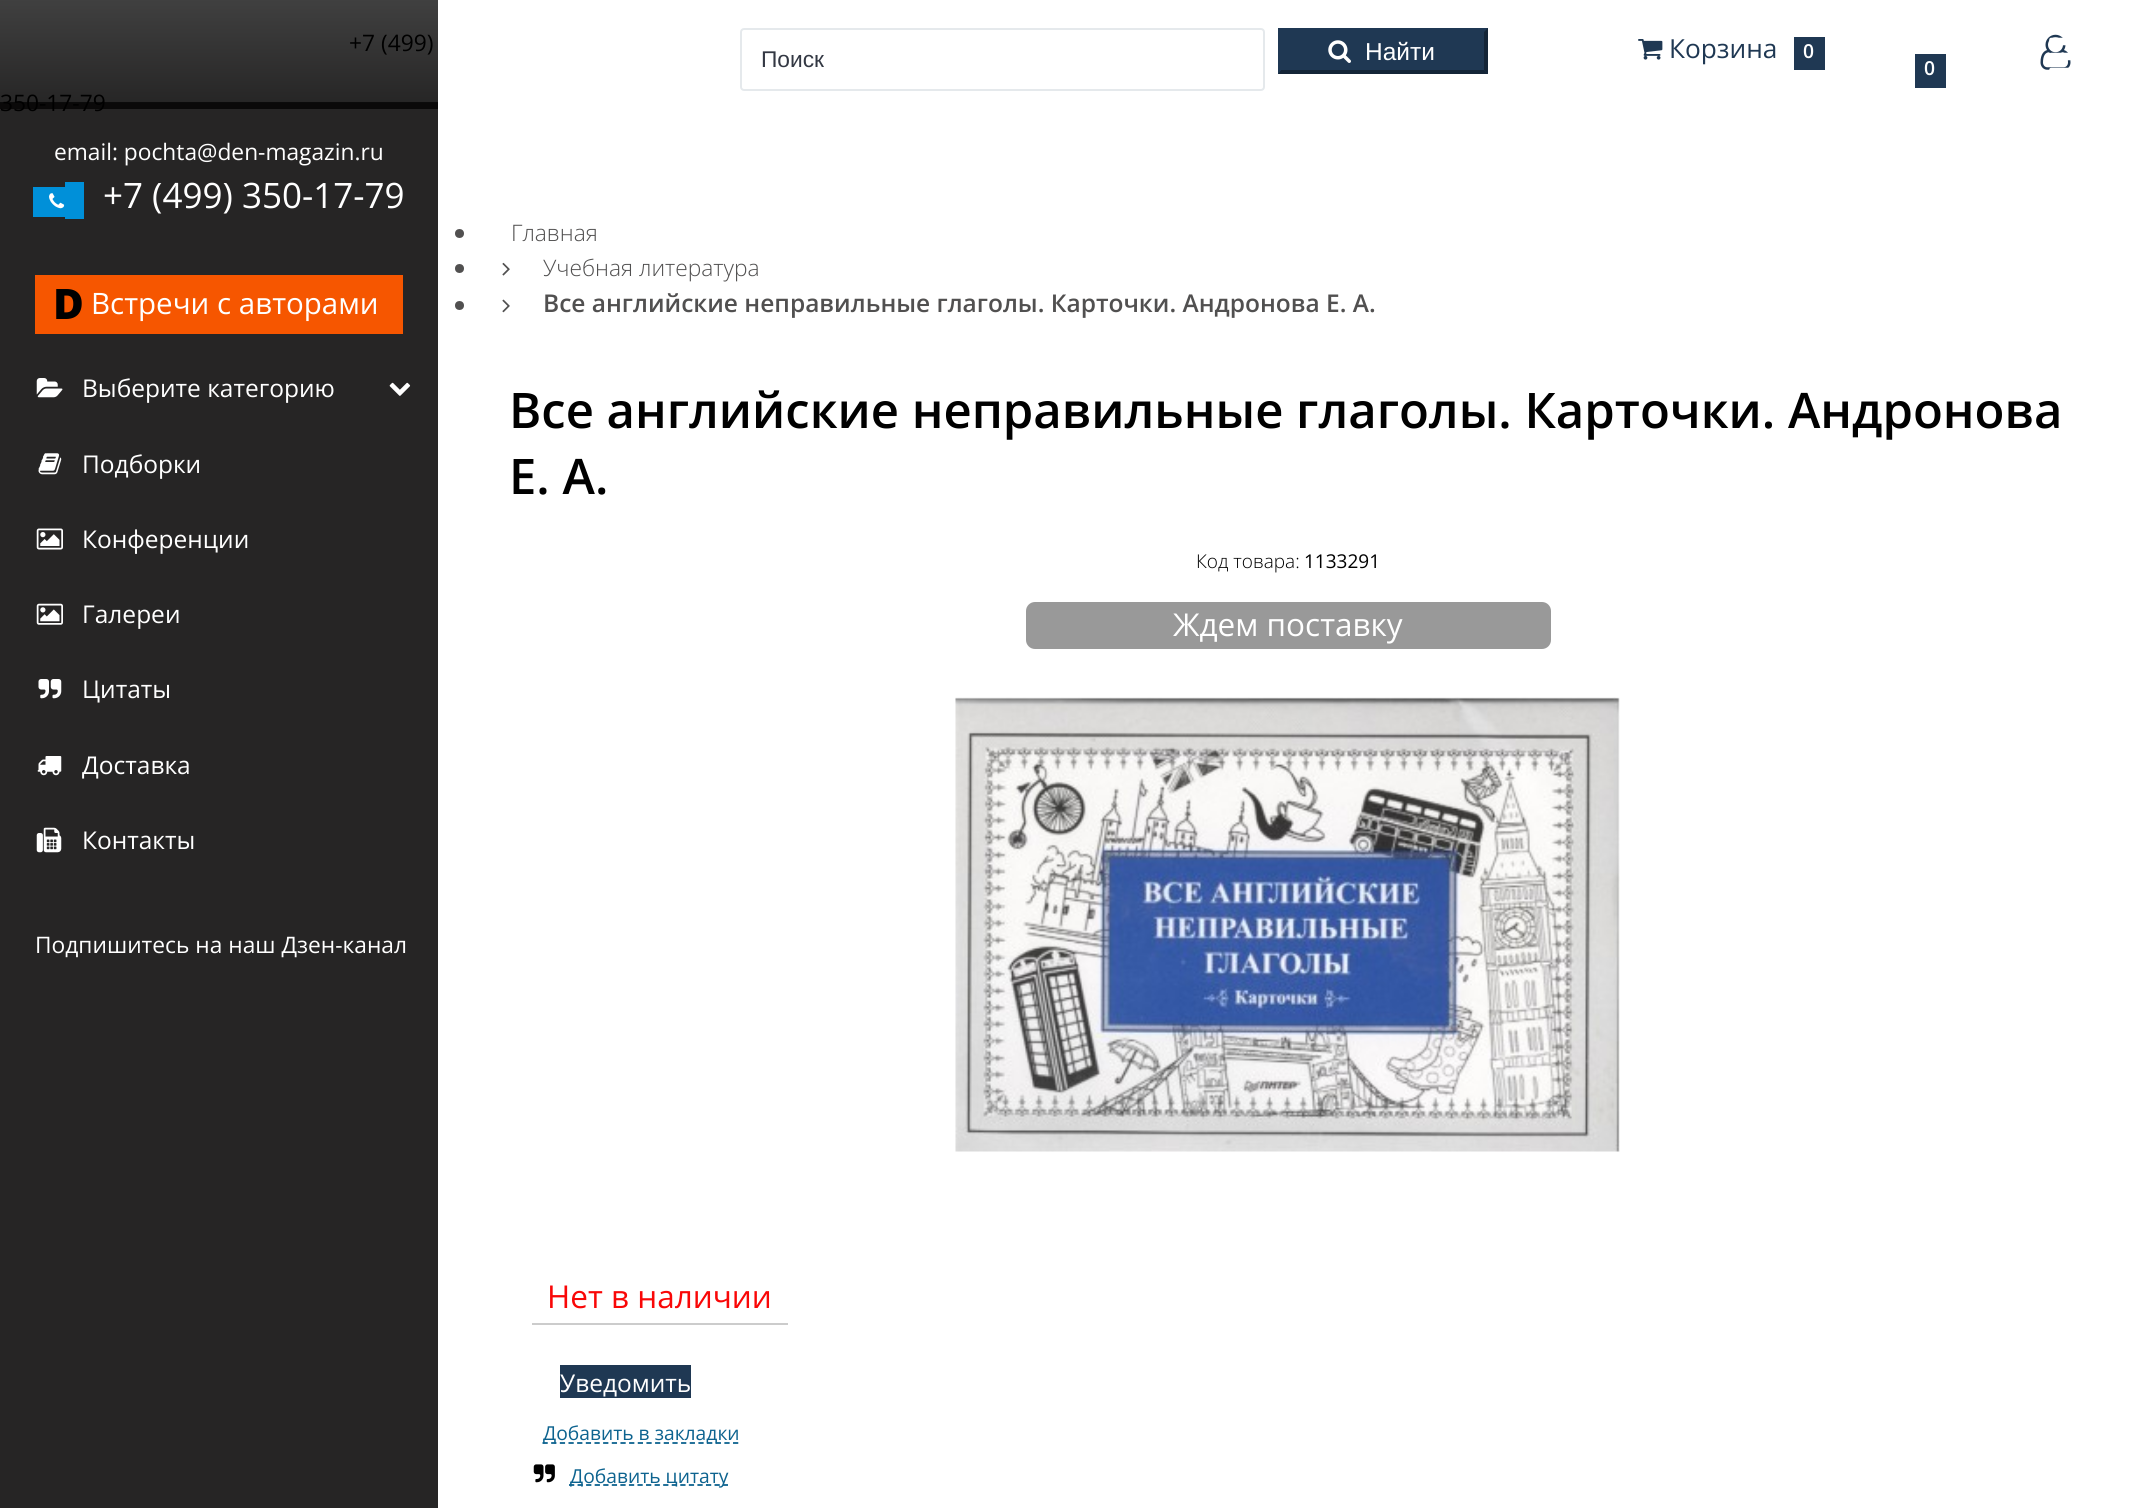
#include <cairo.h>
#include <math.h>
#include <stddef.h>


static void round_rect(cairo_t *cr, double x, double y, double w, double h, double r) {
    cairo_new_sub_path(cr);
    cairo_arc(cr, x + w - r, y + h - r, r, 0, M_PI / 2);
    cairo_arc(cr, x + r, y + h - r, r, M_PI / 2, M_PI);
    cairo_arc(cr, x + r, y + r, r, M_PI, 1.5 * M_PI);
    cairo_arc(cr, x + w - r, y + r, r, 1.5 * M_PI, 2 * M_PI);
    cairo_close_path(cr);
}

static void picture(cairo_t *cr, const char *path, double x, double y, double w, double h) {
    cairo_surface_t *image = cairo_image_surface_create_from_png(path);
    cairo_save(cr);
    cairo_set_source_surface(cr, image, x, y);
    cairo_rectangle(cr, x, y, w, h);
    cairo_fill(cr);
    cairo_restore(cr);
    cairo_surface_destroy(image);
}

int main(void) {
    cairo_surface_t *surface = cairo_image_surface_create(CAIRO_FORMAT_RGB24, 2137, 1508);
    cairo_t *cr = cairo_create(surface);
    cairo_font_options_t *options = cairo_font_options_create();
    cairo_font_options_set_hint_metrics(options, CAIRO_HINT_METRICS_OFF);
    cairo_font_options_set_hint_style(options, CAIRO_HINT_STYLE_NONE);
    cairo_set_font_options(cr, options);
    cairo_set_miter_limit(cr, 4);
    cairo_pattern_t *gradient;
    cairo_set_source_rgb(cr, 0.596, 0.584, 0.584);
    cairo_paint(cr);
    cairo_set_source_rgb(cr, 0.149, 0.145, 0.145);
    cairo_rectangle(cr, 0, 102, 438, 1406);
    cairo_fill(cr);
    cairo_set_source_rgb(cr, 1, 1, 1);
    cairo_rectangle(cr, 438, 1, 1699, 1507);
    cairo_fill(cr);
    gradient = cairo_pattern_create_linear(1069, 0, 1069, 105);
    cairo_pattern_add_color_stop_rgba(gradient, 0, 1, 1, 1, 1);
    cairo_pattern_add_color_stop_rgba(gradient, 1, 1, 1, 1, 0);
    cairo_set_source(cr, gradient);
    cairo_pattern_destroy(gradient);
    cairo_rectangle(cr, 0, 0, 2137, 103);
    cairo_fill(cr);
    cairo_set_source_rgba(cr, 0, 0, 0, 0.75);
    cairo_rectangle(cr, 0, 0, 438, 109);
    cairo_fill(cr);
    cairo_select_font_face(cr, "Open Sans", CAIRO_FONT_SLANT_NORMAL, CAIRO_FONT_WEIGHT_NORMAL);
    cairo_set_font_size(cr, 22.75);
    cairo_set_source_rgb(cr, 0, 0, 0);
    cairo_move_to(cr, 349, 51);
    cairo_show_text(cr, "+7 (499)");
    cairo_move_to(cr, 0, 111);
    cairo_show_text(cr, "350-17-79");
    round_rect(cr, 741, 29, 523, 61, 3);
    cairo_set_source_rgb(cr, 0.898, 0.914, 0.925);
    cairo_stroke(cr);
    cairo_select_font_face(cr, "Liberation Sans", CAIRO_FONT_SLANT_NORMAL, CAIRO_FONT_WEIGHT_NORMAL);
    cairo_set_source_rgb(cr, 0.2, 0.22, 0.263);
    cairo_move_to(cr, 761, 67);
    cairo_show_text(cr, "Поиск");
    cairo_set_source_rgb(cr, 0.122, 0.22, 0.325);
    cairo_rectangle(cr, 1278, 28, 210, 46);
    cairo_fill(cr);
    cairo_set_source_rgb(cr, 0.082, 0.145, 0.216);
    cairo_new_path(cr);
    cairo_move_to(cr, 1488, 28);
    cairo_line_to(cr, 1488, 74);
    cairo_line_to(cr, 1484, 70);
    cairo_line_to(cr, 1484, 32);
    cairo_close_path(cr);
    cairo_fill(cr);
    cairo_new_path(cr);
    cairo_move_to(cr, 1488, 74);
    cairo_line_to(cr, 1278, 74);
    cairo_line_to(cr, 1281, 70);
    cairo_line_to(cr, 1484, 70);
    cairo_close_path(cr);
    cairo_fill(cr);
    cairo_set_source_rgb(cr, 0.122, 0.22, 0.325);
    cairo_new_path(cr);
    cairo_move_to(cr, 1278, 74);
    cairo_line_to(cr, 1278, 28);
    cairo_line_to(cr, 1281, 32);
    cairo_line_to(cr, 1281, 70);
    cairo_close_path(cr);
    cairo_fill(cr);
    picture(cr, "img1.png", 1328, 40, 23, 23);
    cairo_set_font_size(cr, 24.5);
    cairo_set_source_rgb(cr, 1, 1, 1);
    cairo_move_to(cr, 1365, 60);
    cairo_show_text(cr, "Найти");
    picture(cr, "img2.png", 1638, 39, 25, 21);
    cairo_select_font_face(cr, "Open Sans", CAIRO_FONT_SLANT_NORMAL, CAIRO_FONT_WEIGHT_NORMAL);
    cairo_set_font_size(cr, 26.25);
    cairo_set_source_rgb(cr, 0.122, 0.22, 0.325);
    cairo_move_to(cr, 1669, 58);
    cairo_show_text(cr, "Корзина");
    cairo_rectangle(cr, 1794, 37, 31, 33);
    cairo_fill(cr);
    cairo_select_font_face(cr, "Open Sans SemiBold", CAIRO_FONT_SLANT_NORMAL, CAIRO_FONT_WEIGHT_NORMAL);
    cairo_set_font_size(cr, 19.25);
    cairo_set_source_rgb(cr, 1, 1, 1);
    cairo_move_to(cr, 1803, 58);
    cairo_show_text(cr, "0");
    picture(cr, "img3.png", 2040, 34, 31, 36);
    cairo_set_source_rgb(cr, 0.122, 0.22, 0.325);
    cairo_rectangle(cr, 1915, 54, 31, 34);
    cairo_fill(cr);
    cairo_set_source_rgb(cr, 1, 1, 1);
    cairo_move_to(cr, 1924, 75);
    cairo_show_text(cr, "0");
    picture(cr, "img4.png", 2049, 37, 22, 33);
    cairo_select_font_face(cr, "Open Sans", CAIRO_FONT_SLANT_NORMAL, CAIRO_FONT_WEIGHT_NORMAL);
    cairo_set_font_size(cr, 22.75);
    cairo_move_to(cr, 54, 160);
    cairo_show_text(cr, "email: pochta@den-magazin.ru");
    cairo_set_source_rgb(cr, 0, 0.565, 0.851);
    cairo_rectangle(cr, 33, 187, 32, 30);
    cairo_fill(cr);
    cairo_rectangle(cr, 65, 182, 19, 37);
    cairo_fill(cr);
    picture(cr, "img5.png", 49, 193, 16, 16);
    cairo_set_font_size(cr, 35);
    cairo_set_source_rgb(cr, 1, 1, 1);
    cairo_move_to(cr, 103, 208);
    cairo_show_text(cr, "+7 (499) 350-17-79");
    cairo_set_source_rgb(cr, 0.961, 0.337, 0);
    cairo_rectangle(cr, 35, 275, 368, 59);
    cairo_fill(cr);
    cairo_select_font_face(cr, "Open Sans ExtraBold", CAIRO_FONT_SLANT_NORMAL, CAIRO_FONT_WEIGHT_NORMAL);
    cairo_set_font_size(cr, 42);
    cairo_set_source_rgb(cr, 0, 0, 0);
    cairo_move_to(cr, 53, 319);
    cairo_show_text(cr, "D");
    cairo_select_font_face(cr, "Open Sans", CAIRO_FONT_SLANT_NORMAL, CAIRO_FONT_WEIGHT_NORMAL);
    cairo_set_font_size(cr, 29.5);
    cairo_set_source_rgb(cr, 1, 1, 1);
    cairo_move_to(cr, 91, 314);
    cairo_show_text(cr, "Встречи с авторами");
    picture(cr, "img6.png", 36, 378, 27, 20);
    cairo_set_font_size(cr, 24.5);
    cairo_move_to(cr, 82, 397);
    cairo_show_text(cr, "Выберите категорию");
    picture(cr, "img7.png", 389, 382, 22, 14);
    picture(cr, "img8.png", 38, 453, 24, 22);
    cairo_move_to(cr, 82, 473);
    cairo_show_text(cr, "Подборки");
    picture(cr, "img9.png", 36, 528, 27, 22);
    cairo_move_to(cr, 82, 548);
    cairo_show_text(cr, "Конференции");
    picture(cr, "img10.png", 36, 603, 27, 22);
    cairo_move_to(cr, 82, 623);
    cairo_show_text(cr, "Галереи");
    picture(cr, "img11.png", 38, 679, 24, 20);
    cairo_move_to(cr, 82, 698);
    cairo_show_text(cr, "Цитаты");
    picture(cr, "img12.png", 37, 756, 25, 20);
    cairo_move_to(cr, 82, 774);
    cairo_show_text(cr, "Доставка");
    picture(cr, "img13.png", 36, 827, 26, 26);
    cairo_move_to(cr, 82, 849);
    cairo_show_text(cr, "Контакты");
    cairo_set_font_size(cr, 22.75);
    cairo_move_to(cr, 35, 953);
    cairo_show_text(cr, "Подпишитесь на наш Дзен-канал");
    cairo_set_source_rgb(cr, 0.318, 0.314, 0.314);
    cairo_new_path(cr);
    cairo_arc(cr, 459.5, 233.5, 4.5, 0, 2 * M_PI);
    cairo_fill(cr);
    cairo_select_font_face(cr, "Open Sans Light", CAIRO_FONT_SLANT_NORMAL, CAIRO_FONT_WEIGHT_NORMAL);
    cairo_move_to(cr, 511, 241);
    cairo_show_text(cr, "Главная");
    cairo_new_path(cr);
    cairo_arc(cr, 459.5, 268.5, 4.5, 0, 2 * M_PI);
    cairo_fill(cr);
    picture(cr, "img14.png", 502, 262, 8, 14);
    cairo_move_to(cr, 543, 276);
    cairo_show_text(cr, "Учебная литература");
    cairo_new_path(cr);
    cairo_arc(cr, 459.5, 305.5, 4.5, 0, 2 * M_PI);
    cairo_fill(cr);
    picture(cr, "img15.png", 502, 299, 8, 14);
    cairo_select_font_face(cr, "Open Sans SemiBold", CAIRO_FONT_SLANT_NORMAL, CAIRO_FONT_WEIGHT_NORMAL);
    cairo_set_font_size(cr, 24.5);
    cairo_move_to(cr, 543, 312);
    cairo_show_text(cr, "Все английские неправильные глаголы. Карточки. Андронова Е. А.");
    cairo_set_font_size(cr, 49);
    cairo_set_source_rgb(cr, 0, 0, 0);
    cairo_move_to(cr, 509, 428);
    cairo_show_text(cr, "Все английские неправильные глаголы. Карточки. Андронова");
    cairo_move_to(cr, 509, 494);
    cairo_show_text(cr, "Е. А.");
    cairo_select_font_face(cr, "Open Sans Light", CAIRO_FONT_SLANT_NORMAL, CAIRO_FONT_WEIGHT_NORMAL);
    cairo_set_font_size(cr, 19);
    cairo_move_to(cr, 1196, 568);
    cairo_show_text(cr, "Код товара:");
    cairo_select_font_face(cr, "Open Sans", CAIRO_FONT_SLANT_NORMAL, CAIRO_FONT_WEIGHT_NORMAL);
    cairo_move_to(cr, 1304, 568);
    cairo_show_text(cr, "1133291");
    cairo_set_source_rgb(cr, 0.6, 0.6, 0.6);
    round_rect(cr, 1026, 602, 525, 47, 9);
    cairo_fill(cr);
    cairo_set_font_size(cr, 31.5);
    cairo_set_source_rgb(cr, 1, 1, 1);
    cairo_move_to(cr, 1173, 636);
    cairo_show_text(cr, "Ждем поставку");
    picture(cr, "img16.png", 955, 697, 665, 455);
    cairo_set_source_rgb(cr, 0.8, 0.8, 0.8);
    cairo_rectangle(cr, 532, 1323, 256, 2);
    cairo_fill(cr);
    cairo_set_source_rgb(cr, 0.976, 0.031, 0.031);
    cairo_move_to(cr, 547, 1308);
    cairo_show_text(cr, "Нет в наличии");
    cairo_set_source_rgb(cr, 0.122, 0.22, 0.325);
    cairo_rectangle(cr, 560, 1365, 131, 33);
    cairo_fill(cr);
    cairo_set_font_size(cr, 24.5);
    cairo_set_source_rgb(cr, 1, 1, 1);
    cairo_move_to(cr, 560, 1392);
    cairo_show_text(cr, "Уведомить");
    cairo_new_path(cr);
    cairo_move_to(cr, 542.5, 1443);
    cairo_line_to(cr, 738.5, 1443);
    cairo_set_source_rgb(cr, 0.051, 0.388, 0.561);
    cairo_set_line_width(cr, 1.8);
    cairo_set_dash(cr, (double[]){5.25, 3.41}, 2, 0);
    cairo_stroke(cr);
    cairo_set_font_size(cr, 19.25);
    cairo_move_to(cr, 543, 1440);
    cairo_show_text(cr, "Добавить в закладки");
    picture(cr, "img17.png", 533, 1464, 22, 19);
    cairo_new_path(cr);
    cairo_move_to(cr, 569, 1485);
    cairo_line_to(cr, 728, 1485);
    cairo_set_dash(cr, (double[]){5.25, 3.31}, 2, 0);
    cairo_stroke(cr);
    cairo_move_to(cr, 570, 1483);
    cairo_show_text(cr, "Добавить цитату");
    cairo_surface_write_to_png(surface, "page.png");
    cairo_font_options_destroy(options);
    cairo_destroy(cr);
    cairo_surface_destroy(surface);
    return 0;
}
